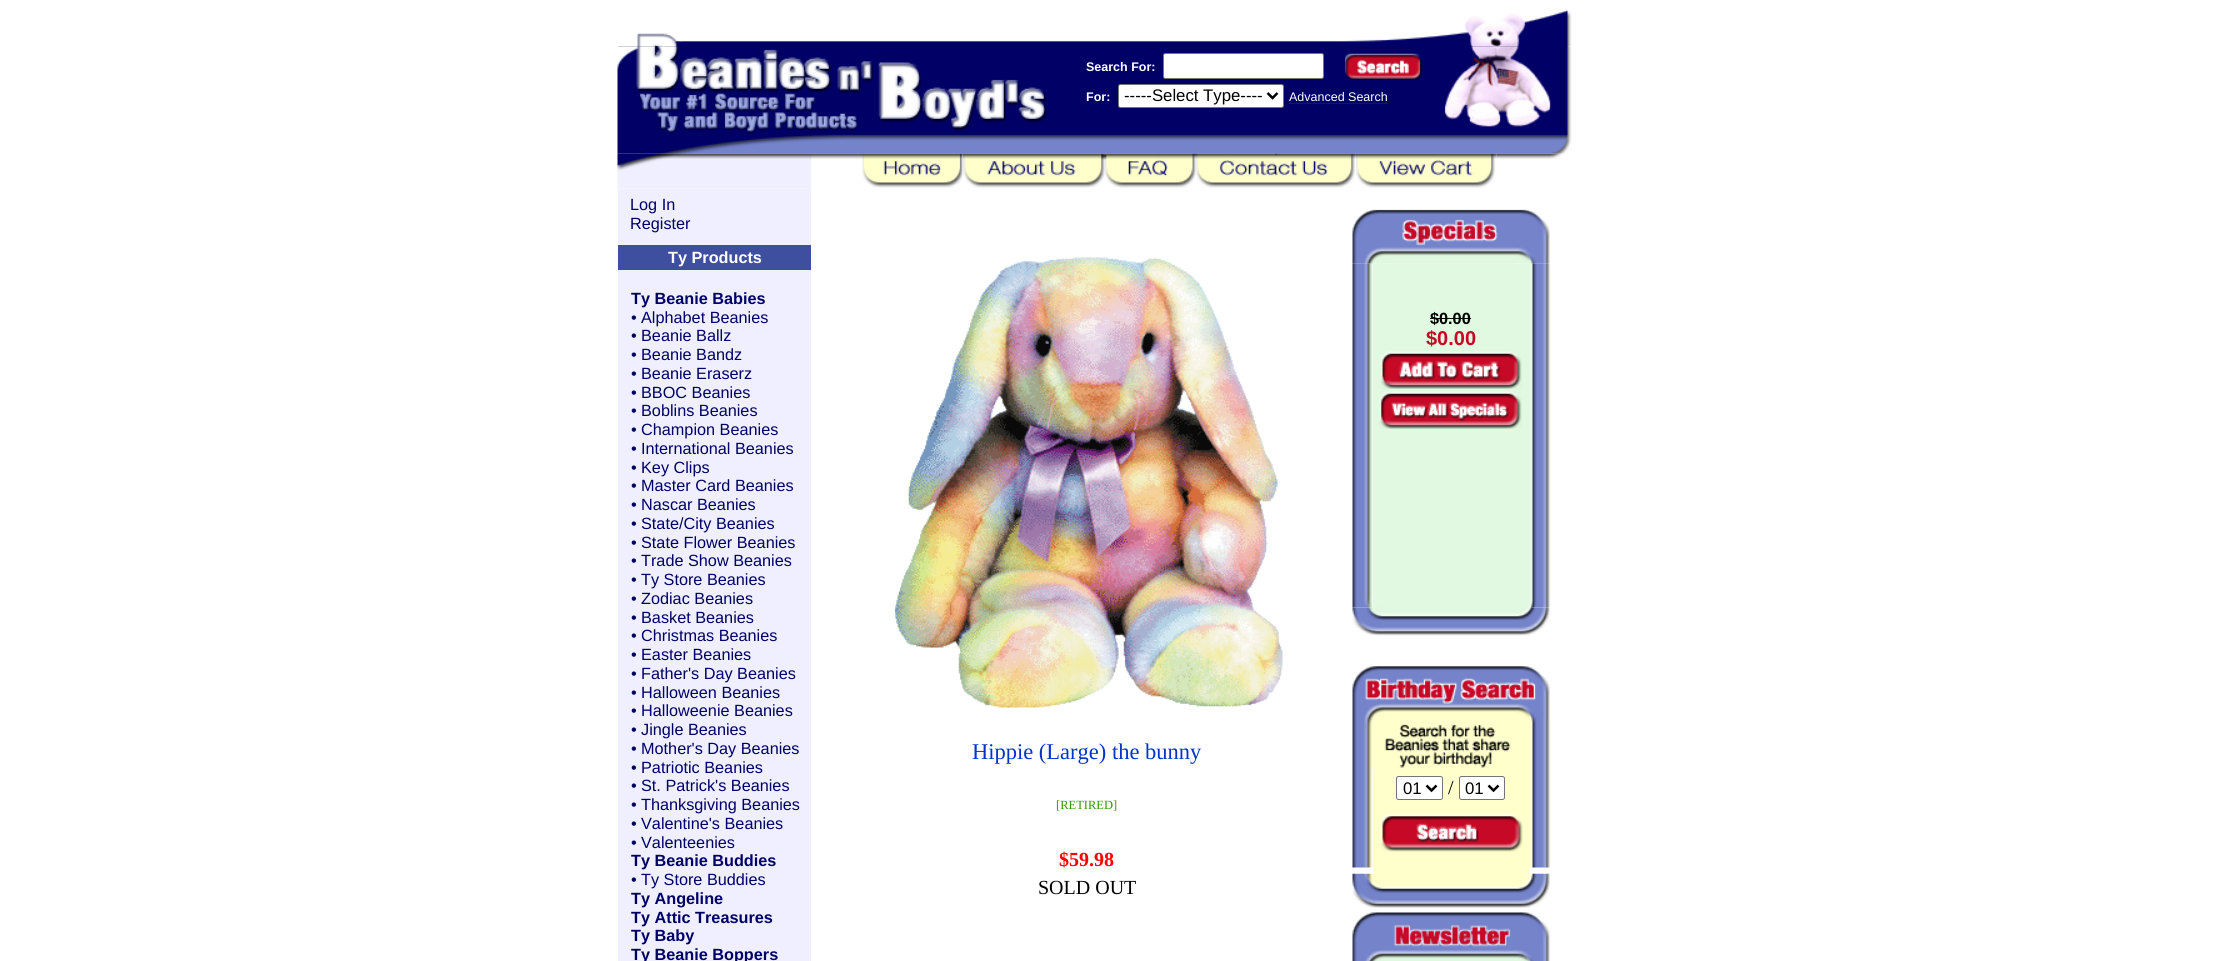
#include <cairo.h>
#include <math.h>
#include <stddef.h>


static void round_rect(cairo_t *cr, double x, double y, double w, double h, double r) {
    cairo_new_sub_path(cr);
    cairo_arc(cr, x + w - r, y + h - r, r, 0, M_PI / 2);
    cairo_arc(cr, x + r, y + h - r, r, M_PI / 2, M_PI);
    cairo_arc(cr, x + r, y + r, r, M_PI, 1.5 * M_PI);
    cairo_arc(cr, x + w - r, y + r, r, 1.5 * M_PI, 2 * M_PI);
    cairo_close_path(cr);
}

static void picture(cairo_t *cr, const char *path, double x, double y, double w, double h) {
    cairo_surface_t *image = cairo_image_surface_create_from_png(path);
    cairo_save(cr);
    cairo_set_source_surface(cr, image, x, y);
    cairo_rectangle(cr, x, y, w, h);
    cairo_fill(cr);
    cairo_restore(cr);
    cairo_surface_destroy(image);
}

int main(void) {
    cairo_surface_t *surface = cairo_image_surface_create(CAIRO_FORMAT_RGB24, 2230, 961);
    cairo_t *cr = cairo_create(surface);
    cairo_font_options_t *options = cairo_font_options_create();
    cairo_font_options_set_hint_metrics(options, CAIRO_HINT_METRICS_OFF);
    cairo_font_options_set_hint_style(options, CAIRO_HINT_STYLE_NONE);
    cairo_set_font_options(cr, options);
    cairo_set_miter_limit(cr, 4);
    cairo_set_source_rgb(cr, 1, 1, 1);
    cairo_paint(cr);
    cairo_set_source_rgb(cr, 0, 0, 0.4);
    cairo_rectangle(cr, 618, 46, 950, 84);
    cairo_fill(cr);
    picture(cr, "img1.png", 618, 10, 954, 37);
    picture(cr, "img2.png", 617, 46, 430, 84);
    cairo_select_font_face(cr, "Liberation Sans", CAIRO_FONT_SLANT_NORMAL, CAIRO_FONT_WEIGHT_BOLD);
    cairo_set_font_size(cr, 12.5);
    cairo_set_source_rgb(cr, 1, 1, 1);
    cairo_move_to(cr, 1086, 71);
    cairo_show_text(cr, "Search For:");
    round_rect(cr, 1163.5, 53.5, 160, 25, 2);
    cairo_fill_preserve(cr);
    cairo_set_source_rgb(cr, 0.463, 0.463, 0.463);
    cairo_set_line_width(cr, 1);
    cairo_stroke(cr);
    picture(cr, "img3.png", 1345, 53, 78, 27);
    cairo_set_source_rgb(cr, 1, 1, 1);
    cairo_move_to(cr, 1086, 101);
    cairo_show_text(cr, "For:");
    round_rect(cr, 1118.5, 84.5, 165, 23, 2);
    cairo_fill_preserve(cr);
    cairo_set_source_rgb(cr, 0.463, 0.463, 0.463);
    cairo_stroke(cr);
    cairo_new_path(cr);
    cairo_move_to(cr, 1267.5, 93);
    cairo_line_to(cr, 1272.5, 98);
    cairo_line_to(cr, 1277.5, 93);
    cairo_set_source_rgb(cr, 0, 0, 0);
    cairo_set_line_width(cr, 2.5);
    cairo_stroke(cr);
    cairo_select_font_face(cr, "Liberation Sans", CAIRO_FONT_SLANT_NORMAL, CAIRO_FONT_WEIGHT_NORMAL);
    cairo_set_font_size(cr, 16.75);
    cairo_move_to(cr, 1124, 101);
    cairo_show_text(cr, "-----Select Type----");
    cairo_set_font_size(cr, 12.5);
    cairo_set_source_rgb(cr, 1, 1, 1);
    cairo_move_to(cr, 1289, 101);
    cairo_show_text(cr, "Advanced Search");
    cairo_set_source_rgb(cr, 0, 0, 0.933);
    cairo_rectangle(cr, 1289, 103, 99, 1);
    cairo_fill(cr);
    picture(cr, "img4.png", 1444, 46, 124, 81);
    picture(cr, "img5.png", 1567, 46, 5, 84);
    picture(cr, "img6.png", 617, 130, 955, 24);
    picture(cr, "img7.png", 617, 153, 243, 36);
    picture(cr, "img8.png", 860, 153, 103, 35);
    picture(cr, "img9.png", 962, 153, 143, 35);
    picture(cr, "img10.png", 1105, 153, 90, 35);
    picture(cr, "img11.png", 1195, 153, 160, 35);
    picture(cr, "img12.png", 1355, 153, 142, 35);
    picture(cr, "img13.png", 1496, 153, 67, 6);
    cairo_set_source_rgb(cr, 0.937, 0.937, 1);
    cairo_rectangle(cr, 618, 189, 193, 772);
    cairo_fill(cr);
    cairo_set_font_size(cr, 16.25);
    cairo_set_source_rgb(cr, 0, 0, 0.4);
    cairo_move_to(cr, 630, 210);
    cairo_show_text(cr, "Log In");
    cairo_move_to(cr, 630, 229);
    cairo_show_text(cr, "Register");
    cairo_set_source_rgb(cr, 0.247, 0.31, 0.627);
    cairo_rectangle(cr, 618, 245, 193, 25);
    cairo_fill(cr);
    cairo_select_font_face(cr, "Liberation Sans", CAIRO_FONT_SLANT_NORMAL, CAIRO_FONT_WEIGHT_BOLD);
    cairo_set_source_rgb(cr, 1, 1, 1);
    cairo_move_to(cr, 668, 263);
    cairo_show_text(cr, "Ty Products");
    cairo_set_source_rgb(cr, 0, 0, 0.4);
    cairo_move_to(cr, 631, 304);
    cairo_show_text(cr, "Ty Beanie Babies");
    cairo_select_font_face(cr, "Liberation Sans", CAIRO_FONT_SLANT_NORMAL, CAIRO_FONT_WEIGHT_NORMAL);
    cairo_set_source_rgb(cr, 0, 0.024, 0.376);
    cairo_move_to(cr, 631, 323);
    cairo_show_text(cr, "•");
    cairo_set_source_rgb(cr, 0, 0, 0.4);
    cairo_move_to(cr, 641, 323);
    cairo_show_text(cr, "Alphabet Beanies");
    cairo_set_source_rgb(cr, 0, 0.024, 0.376);
    cairo_move_to(cr, 631, 341);
    cairo_show_text(cr, "•");
    cairo_set_source_rgb(cr, 0, 0, 0.4);
    cairo_move_to(cr, 641, 341);
    cairo_show_text(cr, "Beanie Ballz");
    cairo_set_source_rgb(cr, 0, 0.024, 0.376);
    cairo_move_to(cr, 631, 360);
    cairo_show_text(cr, "•");
    cairo_set_source_rgb(cr, 0, 0, 0.4);
    cairo_move_to(cr, 641, 360);
    cairo_show_text(cr, "Beanie Bandz");
    cairo_set_source_rgb(cr, 0, 0.024, 0.376);
    cairo_move_to(cr, 631, 379);
    cairo_show_text(cr, "•");
    cairo_set_source_rgb(cr, 0, 0, 0.4);
    cairo_move_to(cr, 641, 379);
    cairo_show_text(cr, "Beanie Eraserz");
    cairo_set_source_rgb(cr, 0, 0.024, 0.376);
    cairo_move_to(cr, 631, 398);
    cairo_show_text(cr, "•");
    cairo_set_source_rgb(cr, 0, 0, 0.4);
    cairo_move_to(cr, 641, 398);
    cairo_show_text(cr, "BBOC Beanies");
    cairo_set_source_rgb(cr, 0, 0.024, 0.376);
    cairo_move_to(cr, 631, 416);
    cairo_show_text(cr, "•");
    cairo_set_source_rgb(cr, 0, 0, 0.4);
    cairo_move_to(cr, 641, 416);
    cairo_show_text(cr, "Boblins Beanies");
    cairo_set_source_rgb(cr, 0, 0.024, 0.376);
    cairo_move_to(cr, 631, 435);
    cairo_show_text(cr, "•");
    cairo_set_source_rgb(cr, 0, 0, 0.4);
    cairo_move_to(cr, 641, 435);
    cairo_show_text(cr, "Champion Beanies");
    cairo_set_source_rgb(cr, 0, 0.024, 0.376);
    cairo_move_to(cr, 631, 454);
    cairo_show_text(cr, "•");
    cairo_set_source_rgb(cr, 0, 0, 0.4);
    cairo_move_to(cr, 641, 454);
    cairo_show_text(cr, "International Beanies");
    cairo_set_source_rgb(cr, 0, 0.024, 0.376);
    cairo_move_to(cr, 631, 473);
    cairo_show_text(cr, "•");
    cairo_set_source_rgb(cr, 0, 0, 0.4);
    cairo_move_to(cr, 641, 473);
    cairo_show_text(cr, "Key Clips");
    cairo_set_source_rgb(cr, 0, 0.024, 0.376);
    cairo_move_to(cr, 631, 491);
    cairo_show_text(cr, "•");
    cairo_set_source_rgb(cr, 0, 0, 0.4);
    cairo_move_to(cr, 641, 491);
    cairo_show_text(cr, "Master Card Beanies");
    cairo_set_source_rgb(cr, 0, 0.024, 0.376);
    cairo_move_to(cr, 631, 510);
    cairo_show_text(cr, "•");
    cairo_set_source_rgb(cr, 0, 0, 0.4);
    cairo_move_to(cr, 641, 510);
    cairo_show_text(cr, "Nascar Beanies");
    cairo_set_source_rgb(cr, 0, 0.024, 0.376);
    cairo_move_to(cr, 631, 529);
    cairo_show_text(cr, "•");
    cairo_set_source_rgb(cr, 0, 0, 0.4);
    cairo_move_to(cr, 641, 529);
    cairo_show_text(cr, "State/City Beanies");
    cairo_set_source_rgb(cr, 0, 0.024, 0.376);
    cairo_move_to(cr, 631, 548);
    cairo_show_text(cr, "•");
    cairo_set_source_rgb(cr, 0, 0, 0.4);
    cairo_move_to(cr, 641, 548);
    cairo_show_text(cr, "State Flower Beanies");
    cairo_set_source_rgb(cr, 0, 0.024, 0.376);
    cairo_move_to(cr, 631, 566);
    cairo_show_text(cr, "•");
    cairo_set_source_rgb(cr, 0, 0, 0.4);
    cairo_move_to(cr, 641, 566);
    cairo_show_text(cr, "Trade Show Beanies");
    cairo_set_source_rgb(cr, 0, 0.024, 0.376);
    cairo_move_to(cr, 631, 585);
    cairo_show_text(cr, "•");
    cairo_set_source_rgb(cr, 0, 0, 0.4);
    cairo_move_to(cr, 641, 585);
    cairo_show_text(cr, "Ty Store Beanies");
    cairo_set_source_rgb(cr, 0, 0.024, 0.376);
    cairo_move_to(cr, 631, 604);
    cairo_show_text(cr, "•");
    cairo_set_source_rgb(cr, 0, 0, 0.4);
    cairo_move_to(cr, 641, 604);
    cairo_show_text(cr, "Zodiac Beanies");
    cairo_set_source_rgb(cr, 0, 0.024, 0.376);
    cairo_move_to(cr, 631, 623);
    cairo_show_text(cr, "•");
    cairo_set_source_rgb(cr, 0, 0, 0.4);
    cairo_move_to(cr, 641, 623);
    cairo_show_text(cr, "Basket Beanies");
    cairo_set_source_rgb(cr, 0, 0.024, 0.376);
    cairo_move_to(cr, 631, 641);
    cairo_show_text(cr, "•");
    cairo_set_source_rgb(cr, 0, 0, 0.4);
    cairo_move_to(cr, 641, 641);
    cairo_show_text(cr, "Christmas Beanies");
    cairo_set_source_rgb(cr, 0, 0.024, 0.376);
    cairo_move_to(cr, 631, 660);
    cairo_show_text(cr, "•");
    cairo_set_source_rgb(cr, 0, 0, 0.4);
    cairo_move_to(cr, 641, 660);
    cairo_show_text(cr, "Easter Beanies");
    cairo_set_source_rgb(cr, 0, 0.024, 0.376);
    cairo_move_to(cr, 631, 679);
    cairo_show_text(cr, "•");
    cairo_set_source_rgb(cr, 0, 0, 0.4);
    cairo_move_to(cr, 641, 679);
    cairo_show_text(cr, "Father's Day Beanies");
    cairo_set_source_rgb(cr, 0, 0.024, 0.376);
    cairo_move_to(cr, 631, 698);
    cairo_show_text(cr, "•");
    cairo_set_source_rgb(cr, 0, 0, 0.4);
    cairo_move_to(cr, 641, 698);
    cairo_show_text(cr, "Halloween Beanies");
    cairo_set_source_rgb(cr, 0, 0.024, 0.376);
    cairo_move_to(cr, 631, 716);
    cairo_show_text(cr, "•");
    cairo_set_source_rgb(cr, 0, 0, 0.4);
    cairo_move_to(cr, 641, 716);
    cairo_show_text(cr, "Halloweenie Beanies");
    cairo_set_source_rgb(cr, 0, 0.024, 0.376);
    cairo_move_to(cr, 631, 735);
    cairo_show_text(cr, "•");
    cairo_set_source_rgb(cr, 0, 0, 0.4);
    cairo_move_to(cr, 641, 735);
    cairo_show_text(cr, "Jingle Beanies");
    cairo_set_source_rgb(cr, 0, 0.024, 0.376);
    cairo_move_to(cr, 631, 754);
    cairo_show_text(cr, "•");
    cairo_set_source_rgb(cr, 0, 0, 0.4);
    cairo_move_to(cr, 641, 754);
    cairo_show_text(cr, "Mother's Day Beanies");
    cairo_set_source_rgb(cr, 0, 0.024, 0.376);
    cairo_move_to(cr, 631, 773);
    cairo_show_text(cr, "•");
    cairo_set_source_rgb(cr, 0, 0, 0.4);
    cairo_move_to(cr, 641, 773);
    cairo_show_text(cr, "Patriotic Beanies");
    cairo_set_source_rgb(cr, 0, 0.024, 0.376);
    cairo_move_to(cr, 631, 791);
    cairo_show_text(cr, "•");
    cairo_set_source_rgb(cr, 0, 0, 0.4);
    cairo_move_to(cr, 641, 791);
    cairo_show_text(cr, "St. Patrick's Beanies");
    cairo_set_source_rgb(cr, 0, 0.024, 0.376);
    cairo_move_to(cr, 631, 810);
    cairo_show_text(cr, "•");
    cairo_set_source_rgb(cr, 0, 0, 0.4);
    cairo_move_to(cr, 641, 810);
    cairo_show_text(cr, "Thanksgiving Beanies");
    cairo_set_source_rgb(cr, 0, 0.024, 0.376);
    cairo_move_to(cr, 631, 829);
    cairo_show_text(cr, "•");
    cairo_set_source_rgb(cr, 0, 0, 0.4);
    cairo_move_to(cr, 641, 829);
    cairo_show_text(cr, "Valentine's Beanies");
    cairo_set_source_rgb(cr, 0, 0.024, 0.376);
    cairo_move_to(cr, 631, 848);
    cairo_show_text(cr, "•");
    cairo_set_source_rgb(cr, 0, 0, 0.4);
    cairo_move_to(cr, 641, 848);
    cairo_show_text(cr, "Valenteenies");
    cairo_select_font_face(cr, "Liberation Sans", CAIRO_FONT_SLANT_NORMAL, CAIRO_FONT_WEIGHT_BOLD);
    cairo_move_to(cr, 631, 866);
    cairo_show_text(cr, "Ty Beanie Buddies");
    cairo_select_font_face(cr, "Liberation Sans", CAIRO_FONT_SLANT_NORMAL, CAIRO_FONT_WEIGHT_NORMAL);
    cairo_set_source_rgb(cr, 0, 0.024, 0.376);
    cairo_move_to(cr, 631, 885);
    cairo_show_text(cr, "•");
    cairo_set_source_rgb(cr, 0, 0, 0.4);
    cairo_move_to(cr, 641, 885);
    cairo_show_text(cr, "Ty Store Buddies");
    cairo_select_font_face(cr, "Liberation Sans", CAIRO_FONT_SLANT_NORMAL, CAIRO_FONT_WEIGHT_BOLD);
    cairo_move_to(cr, 631, 904);
    cairo_show_text(cr, "Ty Angeline");
    cairo_move_to(cr, 631, 923);
    cairo_show_text(cr, "Ty Attic Treasures");
    cairo_move_to(cr, 631, 941);
    cairo_show_text(cr, "Ty Baby");
    cairo_move_to(cr, 631, 960);
    cairo_show_text(cr, "Ty Beanie Boppers");
    picture(cr, "img14.png", 1352, 209, 198, 55);
    picture(cr, "img15.png", 1352, 263, 21, 345);
    cairo_set_source_rgb(cr, 0.878, 0.973, 0.878);
    cairo_rectangle(cr, 1373, 264, 156, 344);
    cairo_fill(cr);
    cairo_set_source_rgb(cr, 0, 0, 0);
    cairo_move_to(cr, 1430, 324);
    cairo_show_text(cr, "$0.00");
    cairo_rectangle(cr, 1430, 318, 41, 1);
    cairo_fill(cr);
    cairo_set_font_size(cr, 20);
    cairo_set_source_rgb(cr, 0.776, 0.035, 0.149);
    cairo_move_to(cr, 1426, 345);
    cairo_show_text(cr, "$0.00");
    picture(cr, "img16.png", 1380, 351, 142, 38);
    picture(cr, "img17.png", 1379, 391, 143, 38);
    picture(cr, "img18.png", 1529, 263, 21, 345);
    picture(cr, "img19.png", 1352, 607, 198, 29);
    picture(cr, "img20.png", 1352, 666, 198, 54);
    picture(cr, "img21.png", 1352, 720, 21, 148);
    cairo_set_source_rgb(cr, 1, 1, 0.8);
    cairo_rectangle(cr, 1373, 720, 156, 154);
    cairo_fill(cr);
    picture(cr, "img22.png", 1372, 720, 139, 50);
    cairo_set_source_rgb(cr, 1, 1, 1);
    round_rect(cr, 1396.5, 776.5, 46, 23, 2);
    cairo_fill_preserve(cr);
    cairo_set_source_rgb(cr, 0.463, 0.463, 0.463);
    cairo_set_line_width(cr, 1);
    cairo_stroke(cr);
    cairo_new_path(cr);
    cairo_move_to(cr, 1426.5, 785.5);
    cairo_line_to(cr, 1431.5, 790.5);
    cairo_line_to(cr, 1436.5, 785.5);
    cairo_set_source_rgb(cr, 0, 0, 0);
    cairo_set_line_width(cr, 2.5);
    cairo_stroke(cr);
    cairo_select_font_face(cr, "Liberation Sans", CAIRO_FONT_SLANT_NORMAL, CAIRO_FONT_WEIGHT_NORMAL);
    cairo_set_font_size(cr, 16.75);
    cairo_move_to(cr, 1403, 794);
    cairo_show_text(cr, "01");
    cairo_select_font_face(cr, "Liberation Serif", CAIRO_FONT_SLANT_NORMAL, CAIRO_FONT_WEIGHT_NORMAL);
    cairo_set_font_size(cr, 20);
    cairo_move_to(cr, 1448, 794);
    cairo_show_text(cr, "/");
    cairo_set_source_rgb(cr, 1, 1, 1);
    round_rect(cr, 1459.5, 776.5, 45, 23, 2);
    cairo_fill_preserve(cr);
    cairo_set_source_rgb(cr, 0.463, 0.463, 0.463);
    cairo_set_line_width(cr, 1);
    cairo_stroke(cr);
    cairo_new_path(cr);
    cairo_move_to(cr, 1488.5, 785.5);
    cairo_line_to(cr, 1493.5, 790.5);
    cairo_line_to(cr, 1498.5, 785.5);
    cairo_set_source_rgb(cr, 0, 0, 0);
    cairo_set_line_width(cr, 2.5);
    cairo_stroke(cr);
    cairo_select_font_face(cr, "Liberation Sans", CAIRO_FONT_SLANT_NORMAL, CAIRO_FONT_WEIGHT_NORMAL);
    cairo_set_font_size(cr, 16.75);
    cairo_move_to(cr, 1465, 794);
    cairo_show_text(cr, "01");
    picture(cr, "img23.png", 1380, 813, 143, 39);
    picture(cr, "img24.png", 1529, 720, 21, 148);
    picture(cr, "img25.png", 1352, 873, 198, 35);
    picture(cr, "img26.png", 1352, 912, 198, 49);
    picture(cr, "img27.png", 894, 257, 389, 451);
    cairo_select_font_face(cr, "Liberation Serif", CAIRO_FONT_SLANT_NORMAL, CAIRO_FONT_WEIGHT_NORMAL);
    cairo_set_font_size(cr, 22.5);
    cairo_set_source_rgb(cr, 0, 0.2, 0.8);
    cairo_move_to(cr, 972, 759);
    cairo_show_text(cr, "Hippie (Large) the bunny");
    cairo_set_font_size(cr, 12.5);
    cairo_set_source_rgb(cr, 0.2, 0.6, 0);
    cairo_move_to(cr, 1056, 809);
    cairo_show_text(cr, "[RETIRED]");
    cairo_select_font_face(cr, "Liberation Serif", CAIRO_FONT_SLANT_NORMAL, CAIRO_FONT_WEIGHT_BOLD);
    cairo_set_font_size(cr, 20);
    cairo_set_source_rgb(cr, 1, 0, 0);
    cairo_move_to(cr, 1059, 866);
    cairo_show_text(cr, "$59.98");
    cairo_select_font_face(cr, "Liberation Serif", CAIRO_FONT_SLANT_NORMAL, CAIRO_FONT_WEIGHT_NORMAL);
    cairo_set_source_rgb(cr, 0, 0, 0);
    cairo_move_to(cr, 1038, 894);
    cairo_show_text(cr, "SOLD OUT");
    cairo_surface_write_to_png(surface, "page.png");
    cairo_font_options_destroy(options);
    cairo_destroy(cr);
    cairo_surface_destroy(surface);
    return 0;
}
